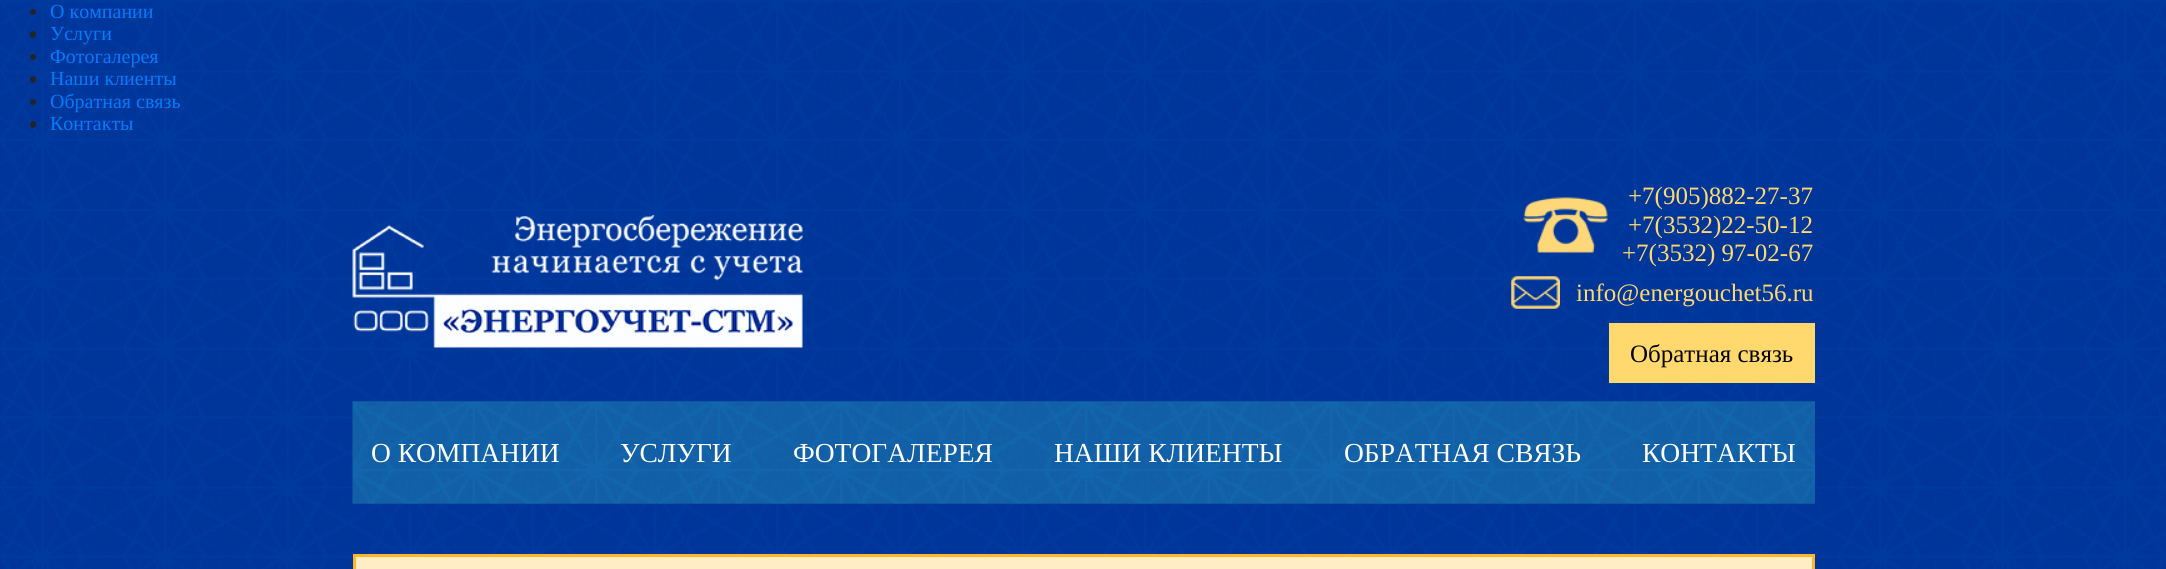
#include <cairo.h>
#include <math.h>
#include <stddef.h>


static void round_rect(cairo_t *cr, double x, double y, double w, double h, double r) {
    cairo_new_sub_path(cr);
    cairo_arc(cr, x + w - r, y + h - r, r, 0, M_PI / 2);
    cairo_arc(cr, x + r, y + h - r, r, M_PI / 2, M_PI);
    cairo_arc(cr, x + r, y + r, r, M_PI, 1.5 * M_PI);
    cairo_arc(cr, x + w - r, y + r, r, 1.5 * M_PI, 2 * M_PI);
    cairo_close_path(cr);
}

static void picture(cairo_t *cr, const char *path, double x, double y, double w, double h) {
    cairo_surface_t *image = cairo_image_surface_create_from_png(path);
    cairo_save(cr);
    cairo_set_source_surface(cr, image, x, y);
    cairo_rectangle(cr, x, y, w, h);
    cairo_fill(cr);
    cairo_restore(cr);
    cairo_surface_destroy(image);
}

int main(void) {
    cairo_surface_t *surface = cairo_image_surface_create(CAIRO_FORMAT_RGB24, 2166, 569);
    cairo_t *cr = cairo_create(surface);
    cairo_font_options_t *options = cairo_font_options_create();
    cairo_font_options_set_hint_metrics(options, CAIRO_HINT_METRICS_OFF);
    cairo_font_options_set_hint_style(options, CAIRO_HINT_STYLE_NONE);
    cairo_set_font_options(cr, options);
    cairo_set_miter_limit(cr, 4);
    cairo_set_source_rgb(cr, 1, 1, 1);
    cairo_paint(cr);
    picture(cr, "img1.png", 0, 0, 2166, 569);
    cairo_set_source_rgb(cr, 0.129, 0.145, 0.161);
    cairo_arc(cr, 33, 12, 3, 0, 2 * M_PI);
    cairo_fill(cr);
    cairo_select_font_face(cr, "Liberation Serif", CAIRO_FONT_SLANT_NORMAL, CAIRO_FONT_WEIGHT_NORMAL);
    cairo_set_font_size(cr, 20);
    cairo_set_source_rgb(cr, 0, 0.482, 1);
    cairo_move_to(cr, 50, 18);
    cairo_show_text(cr, "О компании");
    cairo_set_source_rgb(cr, 0.129, 0.145, 0.161);
    round_rect(cr, 30, 31, 6, 7, 3);
    cairo_fill(cr);
    cairo_set_source_rgb(cr, 0, 0.482, 1);
    cairo_move_to(cr, 50, 40);
    cairo_show_text(cr, "Услуги");
    cairo_set_source_rgb(cr, 0.129, 0.145, 0.161);
    cairo_new_path(cr);
    cairo_arc(cr, 33, 57, 3, 0, 2 * M_PI);
    cairo_fill(cr);
    cairo_set_source_rgb(cr, 0, 0.482, 1);
    cairo_move_to(cr, 50, 63);
    cairo_show_text(cr, "Фотогалерея");
    cairo_set_source_rgb(cr, 0.129, 0.145, 0.161);
    round_rect(cr, 30, 76, 6, 7, 3);
    cairo_fill(cr);
    cairo_set_source_rgb(cr, 0, 0.482, 1);
    cairo_move_to(cr, 50, 85);
    cairo_show_text(cr, "Наши клиенты");
    cairo_set_source_rgb(cr, 0.129, 0.145, 0.161);
    cairo_new_path(cr);
    cairo_arc(cr, 33, 102, 3, 0, 2 * M_PI);
    cairo_fill(cr);
    cairo_set_source_rgb(cr, 0, 0.482, 1);
    cairo_move_to(cr, 50, 108);
    cairo_show_text(cr, "Обратная связь");
    cairo_set_source_rgb(cr, 0.129, 0.145, 0.161);
    round_rect(cr, 30, 121, 6, 7, 3);
    cairo_fill(cr);
    cairo_set_source_rgb(cr, 0, 0.482, 1);
    cairo_move_to(cr, 50, 130);
    cairo_show_text(cr, "Контакты");
    picture(cr, "img2.png", 352, 215, 451, 133);
    picture(cr, "img3.png", 1523, 197, 85, 56);
    cairo_set_font_size(cr, 25);
    cairo_set_source_rgb(cr, 1, 0.851, 0.427);
    cairo_move_to(cr, 1628, 204);
    cairo_show_text(cr, "+7(905)882-27-37");
    cairo_move_to(cr, 1628, 233);
    cairo_show_text(cr, "+7(3532)22-50-12");
    cairo_move_to(cr, 1622, 261);
    cairo_show_text(cr, "+7(3532) 97-02-67");
    picture(cr, "img4.png", 1511, 276, 49, 33);
    cairo_move_to(cr, 1576, 301);
    cairo_show_text(cr, "info@energouchet56.ru");
    cairo_rectangle(cr, 1609, 323, 206, 60);
    cairo_fill(cr);
    cairo_set_source_rgb(cr, 0.012, 0.012, 0.012);
    cairo_move_to(cr, 1630, 362);
    cairo_show_text(cr, "Обратная связь");
    picture(cr, "img5.png", 352, 401, 1463, 103);
    cairo_set_font_size(cr, 27.5);
    cairo_set_source_rgb(cr, 1, 1, 1);
    cairo_move_to(cr, 371, 462);
    cairo_show_text(cr, "О КОМПАНИИ");
    cairo_move_to(cr, 620, 462);
    cairo_show_text(cr, "УСЛУГИ");
    cairo_move_to(cr, 793, 462);
    cairo_show_text(cr, "ФОТОГАЛЕРЕЯ");
    cairo_move_to(cr, 1054, 462);
    cairo_show_text(cr, "НАШИ КЛИЕНТЫ");
    cairo_move_to(cr, 1344, 462);
    cairo_show_text(cr, "ОБРАТНАЯ СВЯЗЬ");
    cairo_move_to(cr, 1642, 462);
    cairo_show_text(cr, "КОНТАКТЫ");
    cairo_set_source_rgb(cr, 1, 0.933, 0.773);
    cairo_rectangle(cr, 354.5, 555.5, 1459, 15);
    cairo_fill_preserve(cr);
    cairo_set_source_rgb(cr, 1, 0.714, 0.165);
    cairo_set_line_width(cr, 3);
    cairo_stroke(cr);
    cairo_surface_write_to_png(surface, "page.png");
    cairo_font_options_destroy(options);
    cairo_destroy(cr);
    cairo_surface_destroy(surface);
    return 0;
}
